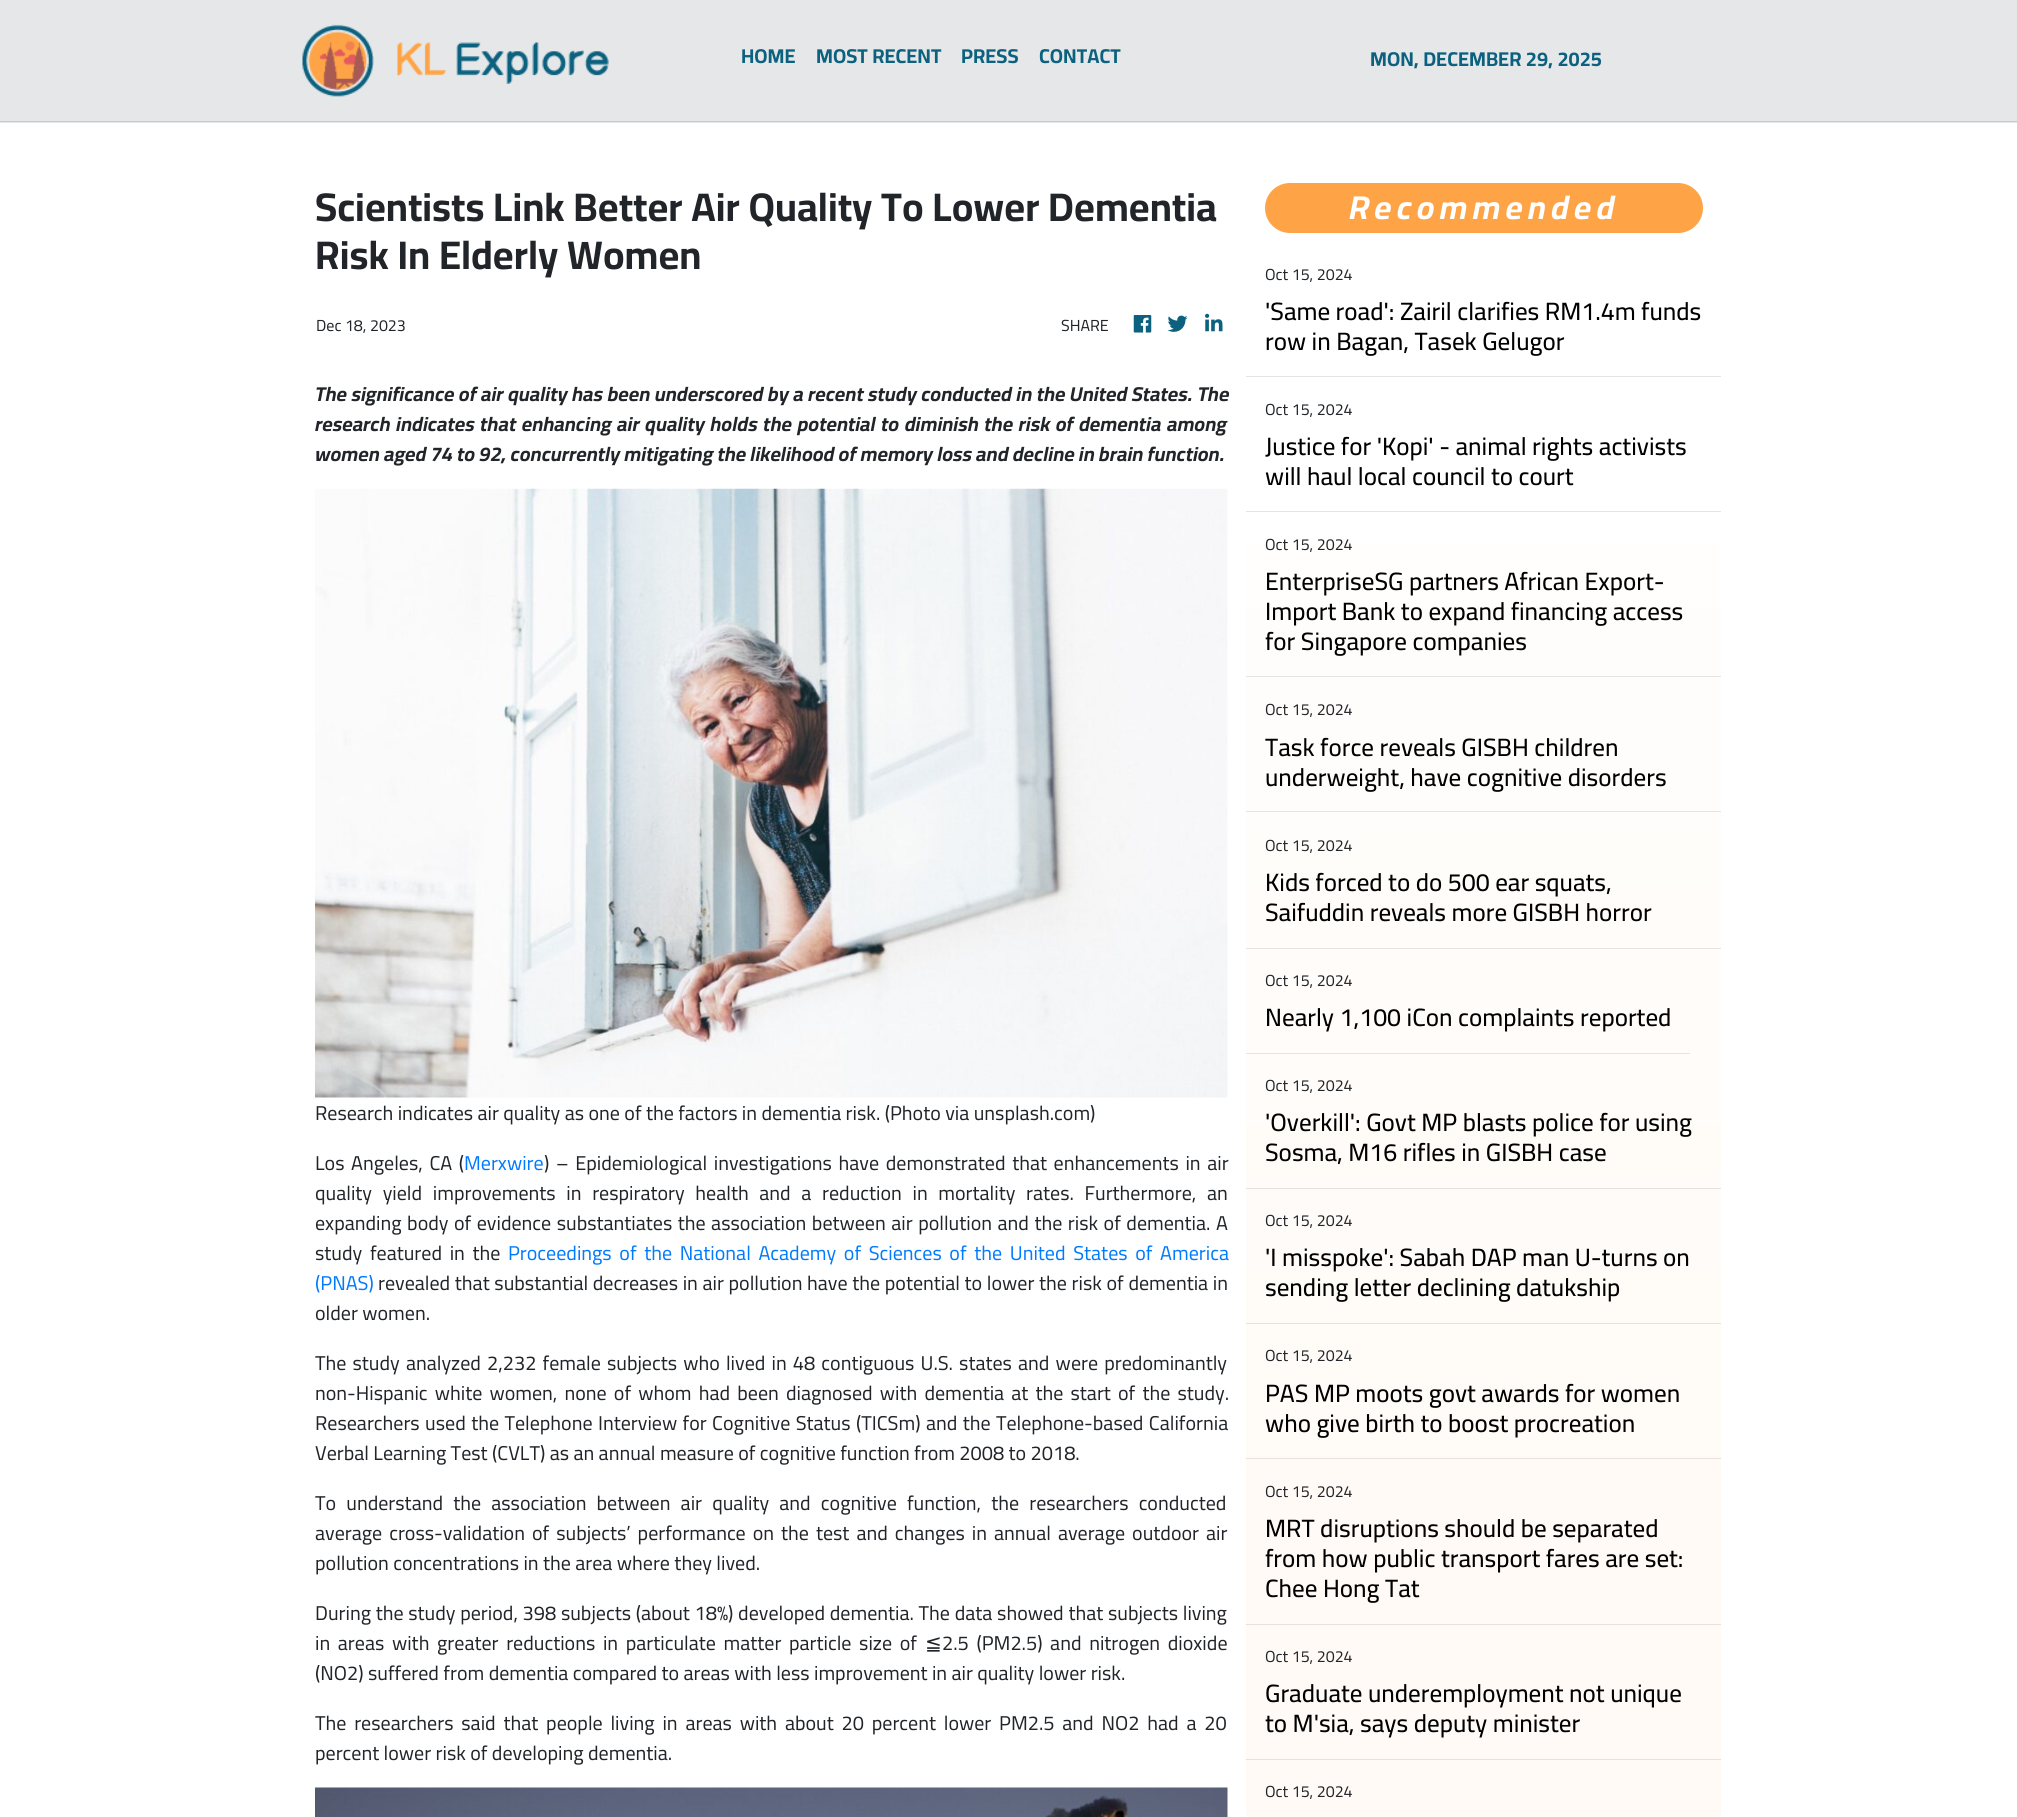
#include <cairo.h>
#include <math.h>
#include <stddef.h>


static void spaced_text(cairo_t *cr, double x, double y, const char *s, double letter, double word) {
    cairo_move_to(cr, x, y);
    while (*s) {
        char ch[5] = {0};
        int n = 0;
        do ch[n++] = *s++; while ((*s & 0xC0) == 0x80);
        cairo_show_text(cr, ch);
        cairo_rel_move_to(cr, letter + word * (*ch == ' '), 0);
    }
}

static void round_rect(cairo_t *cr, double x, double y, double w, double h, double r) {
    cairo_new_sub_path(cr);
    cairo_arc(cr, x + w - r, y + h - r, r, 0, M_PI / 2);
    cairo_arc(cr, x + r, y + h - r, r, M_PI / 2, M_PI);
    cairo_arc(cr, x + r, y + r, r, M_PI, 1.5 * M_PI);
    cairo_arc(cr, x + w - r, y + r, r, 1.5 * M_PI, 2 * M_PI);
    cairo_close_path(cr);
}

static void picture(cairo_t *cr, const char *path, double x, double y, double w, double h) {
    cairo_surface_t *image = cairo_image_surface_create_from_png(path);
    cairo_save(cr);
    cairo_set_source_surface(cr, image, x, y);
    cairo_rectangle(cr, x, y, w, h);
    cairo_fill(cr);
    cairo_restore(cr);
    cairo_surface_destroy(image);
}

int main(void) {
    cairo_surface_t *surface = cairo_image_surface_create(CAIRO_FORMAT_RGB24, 2017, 1817);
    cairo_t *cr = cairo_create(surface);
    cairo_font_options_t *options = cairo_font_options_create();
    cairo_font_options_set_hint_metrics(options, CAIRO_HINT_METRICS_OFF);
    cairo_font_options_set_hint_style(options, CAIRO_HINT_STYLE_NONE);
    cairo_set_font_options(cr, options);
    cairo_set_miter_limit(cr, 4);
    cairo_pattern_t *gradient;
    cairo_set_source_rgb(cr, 1, 1, 1);
    cairo_paint(cr);
    cairo_set_source_rgb(cr, 0.898, 0.906, 0.914);
    cairo_rectangle(cr, 0, 0, 2017, 123);
    cairo_fill(cr);
    cairo_set_source_rgb(cr, 0.792, 0.792, 0.792);
    cairo_rectangle(cr, 0, 121, 2017, 1);
    cairo_fill(cr);
    picture(cr, "img1.png", 302, 24, 307, 73);
    cairo_select_font_face(cr, "Cairo", CAIRO_FONT_SLANT_NORMAL, CAIRO_FONT_WEIGHT_BOLD);
    cairo_set_font_size(cr, 20);
    cairo_set_source_rgb(cr, 0.047, 0.38, 0.494);
    cairo_move_to(cr, 741, 63);
    cairo_show_text(cr, "HOME");
    cairo_move_to(cr, 816, 63);
    cairo_show_text(cr, "MOST RECENT");
    cairo_move_to(cr, 961, 63);
    cairo_show_text(cr, "PRESS");
    cairo_move_to(cr, 1039, 63);
    cairo_show_text(cr, "CONTACT");
    cairo_move_to(cr, 1370, 66);
    cairo_show_text(cr, "MON, DECEMBER 29, 2025");
    cairo_set_font_size(cr, 40);
    cairo_set_source_rgb(cr, 0.129, 0.145, 0.161);
    cairo_move_to(cr, 315, 221);
    cairo_show_text(cr, "Scientists Link Better Air Quality To Lower Dementia");
    cairo_move_to(cr, 315, 269);
    cairo_show_text(cr, "Risk In Elderly Women");
    cairo_select_font_face(cr, "Cairo", CAIRO_FONT_SLANT_NORMAL, CAIRO_FONT_WEIGHT_NORMAL);
    cairo_set_font_size(cr, 16);
    cairo_move_to(cr, 316, 331);
    cairo_show_text(cr, "Dec 18, 2023");
    cairo_move_to(cr, 1061, 331);
    cairo_show_text(cr, "SHARE");
    picture(cr, "img2.png", 1133, 315, 19, 18);
    picture(cr, "img3.png", 1167, 315, 21, 17);
    picture(cr, "img4.png", 1205, 313, 18, 19);
    cairo_select_font_face(cr, "Cairo", CAIRO_FONT_SLANT_ITALIC, CAIRO_FONT_WEIGHT_BOLD);
    cairo_set_font_size(cr, 20);
    cairo_move_to(cr, 315, 401);
    cairo_show_text(cr, "The significance of air quality has been underscored by a recent study conducted in the United States. The");
    spaced_text(cr, 315, 431, "research indicates that enhancing air quality holds the potential to diminish the risk of dementia among", 0, 1.1);
    spaced_text(cr, 315, 461, "women aged 74 to 92, concurrently mitigating the likelihood of memory loss and decline in brain function.", 0, -0.25);
    picture(cr, "img5.png", 315, 488, 913, 610);
    cairo_select_font_face(cr, "Cairo", CAIRO_FONT_SLANT_NORMAL, CAIRO_FONT_WEIGHT_NORMAL);
    cairo_move_to(cr, 315, 1120);
    cairo_show_text(cr, "Research indicates air quality as one of the factors in dementia risk. (Photo via unsplash.com)");
    spaced_text(cr, 315, 1170, "Los Angeles, CA (", 0, 2.25);
    cairo_set_source_rgb(cr, 0, 0.482, 1);
    cairo_move_to(cr, 464, 1170);
    cairo_show_text(cr, "Merxwire");
    cairo_set_source_rgb(cr, 0.129, 0.145, 0.161);
    spaced_text(cr, 544, 1170, ") – Epidemiological investigations have demonstrated that enhancements in air", 0, 2.25);
    spaced_text(cr, 315, 1200, "quality yield improvements in respiratory health and a reduction in mortality rates. Furthermore, an", 0, 6.25);
    spaced_text(cr, 315, 1230, "expanding body of evidence substantiates the association between air pollution and the risk of dementia. A", 0, 1.1);
    spaced_text(cr, 315, 1260, "study featured in the", 0, 3.25);
    cairo_set_source_rgb(cr, 0, 0.482, 1);
    spaced_text(cr, 508, 1260, "Proceedings of the National Academy of Sciences of the United States of America", 0, 3.25);
    cairo_move_to(cr, 315, 1290);
    cairo_show_text(cr, "(PNAS)");
    cairo_set_source_rgb(cr, 0.129, 0.145, 0.161);
    spaced_text(cr, 378, 1290, "revealed that substantial decreases in air pollution have the potential to lower the risk of dementia in", 0, 0.25);
    cairo_move_to(cr, 315, 1320);
    cairo_show_text(cr, "older women.");
    spaced_text(cr, 315, 1370, "The study analyzed 2,232 female subjects who lived in 48 contiguous U.S. states and were predominantly", 0, 1.75);
    spaced_text(cr, 315, 1400, "non-Hispanic white women, none of whom had been diagnosed with dementia at the start of the study.", 0, 2.75);
    spaced_text(cr, 315, 1430, "Researchers used the Telephone Interview for Cognitive Status (TICSm) and the Telephone-based California", 0, 1);
    cairo_move_to(cr, 315, 1460);
    cairo_show_text(cr, "Verbal Learning Test (CVLT) as an annual measure of cognitive function from 2008 to 2018.");
    spaced_text(cr, 315, 1510, "To understand the association between air quality and cognitive function, the researchers conducted", 0, 5.75);
    spaced_text(cr, 315, 1540, "average cross-validation of subjects’ performance on the test and changes in annual average outdoor air", 0, 2.6);
    cairo_move_to(cr, 315, 1570);
    cairo_show_text(cr, "pollution concentrations in the area where they lived.");
    spaced_text(cr, 315, 1620, "During the study period, 398 subjects (about 18%) developed dementia. The data showed that subjects living", 0, 0.3);
    spaced_text(cr, 315, 1650, "in areas with greater reductions in particulate matter particle size of", 0, 3.25);
    cairo_select_font_face(cr, "DejaVu Sans", CAIRO_FONT_SLANT_NORMAL, CAIRO_FONT_WEIGHT_NORMAL);
    cairo_move_to(cr, 925, 1650);
    cairo_show_text(cr, "≦");
    cairo_select_font_face(cr, "Cairo", CAIRO_FONT_SLANT_NORMAL, CAIRO_FONT_WEIGHT_NORMAL);
    spaced_text(cr, 942, 1650, "2.5 (PM2.5) and nitrogen dioxide", 0, 3.25);
    cairo_move_to(cr, 315, 1680);
    cairo_show_text(cr, "(NO2) suffered from dementia compared to areas with less improvement in air quality lower risk.");
    spaced_text(cr, 315, 1730, "The researchers said that people living in areas with about 20 percent lower PM2.5 and NO2 had a 20", 0, 3.4);
    cairo_move_to(cr, 315, 1760);
    cairo_show_text(cr, "percent lower risk of developing dementia.");
    picture(cr, "img6.png", 315, 1787, 913, 30);
    gradient = cairo_pattern_create_linear(1484, 183, 1484, 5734);
    cairo_pattern_add_color_stop_rgba(gradient, 0, 1, 1, 1, 1);
    cairo_pattern_add_color_stop_rgba(gradient, 0.26, 1, 0.98, 0.961, 1);
    cairo_pattern_add_color_stop_rgba(gradient, 0.81, 1, 0.98, 0.961, 1);
    cairo_pattern_add_color_stop_rgba(gradient, 1, 1, 1, 1, 1);
    cairo_set_source(cr, gradient);
    cairo_pattern_destroy(gradient);
    cairo_rectangle(cr, 1246, 544, 475, 1273);
    cairo_fill(cr);
    cairo_set_source_rgb(cr, 1, 0.643, 0.275);
    round_rect(cr, 1265, 183, 438, 50, 25);
    cairo_fill(cr);
    cairo_select_font_face(cr, "Cairo", CAIRO_FONT_SLANT_ITALIC, CAIRO_FONT_WEIGHT_BOLD);
    cairo_set_font_size(cr, 33);
    cairo_set_source_rgb(cr, 1, 1, 1);
    spaced_text(cr, 1349, 219, "Recommended", 5, 0);
    cairo_select_font_face(cr, "Cairo", CAIRO_FONT_SLANT_NORMAL, CAIRO_FONT_WEIGHT_NORMAL);
    cairo_set_font_size(cr, 16);
    cairo_set_source_rgb(cr, 0.129, 0.145, 0.161);
    cairo_move_to(cr, 1265, 280);
    cairo_show_text(cr, "Oct 15, 2024");
    cairo_select_font_face(cr, "Cairo Medium", CAIRO_FONT_SLANT_NORMAL, CAIRO_FONT_WEIGHT_NORMAL);
    cairo_set_font_size(cr, 25);
    cairo_set_source_rgb(cr, 0, 0, 0);
    cairo_move_to(cr, 1265, 320);
    cairo_show_text(cr, "'Same road': Zairil clarifies RM1.4m funds");
    cairo_move_to(cr, 1265, 350);
    cairo_show_text(cr, "row in Bagan, Tasek Gelugor");
    cairo_set_source_rgb(cr, 0.902, 0.898, 0.898);
    cairo_rectangle(cr, 1246, 376, 475, 1);
    cairo_fill(cr);
    cairo_select_font_face(cr, "Cairo", CAIRO_FONT_SLANT_NORMAL, CAIRO_FONT_WEIGHT_NORMAL);
    cairo_set_font_size(cr, 16);
    cairo_set_source_rgb(cr, 0.129, 0.145, 0.161);
    cairo_move_to(cr, 1265, 415);
    cairo_show_text(cr, "Oct 15, 2024");
    cairo_select_font_face(cr, "Cairo Medium", CAIRO_FONT_SLANT_NORMAL, CAIRO_FONT_WEIGHT_NORMAL);
    cairo_set_font_size(cr, 25);
    cairo_set_source_rgb(cr, 0, 0, 0);
    cairo_move_to(cr, 1265, 455);
    cairo_show_text(cr, "Justice for 'Kopi' - animal rights activists");
    cairo_move_to(cr, 1265, 485);
    cairo_show_text(cr, "will haul local council to court");
    cairo_set_source_rgb(cr, 0.902, 0.898, 0.894);
    cairo_rectangle(cr, 1246, 511, 475, 1);
    cairo_fill(cr);
    cairo_select_font_face(cr, "Cairo", CAIRO_FONT_SLANT_NORMAL, CAIRO_FONT_WEIGHT_NORMAL);
    cairo_set_font_size(cr, 16);
    cairo_set_source_rgb(cr, 0.129, 0.145, 0.161);
    cairo_move_to(cr, 1265, 550);
    cairo_show_text(cr, "Oct 15, 2024");
    cairo_select_font_face(cr, "Cairo Medium", CAIRO_FONT_SLANT_NORMAL, CAIRO_FONT_WEIGHT_NORMAL);
    cairo_set_font_size(cr, 25);
    cairo_set_source_rgb(cr, 0, 0, 0);
    cairo_move_to(cr, 1265, 590);
    cairo_show_text(cr, "EnterpriseSG partners African Export-");
    cairo_move_to(cr, 1265, 620);
    cairo_show_text(cr, "Import Bank to expand financing access");
    cairo_move_to(cr, 1265, 650);
    cairo_show_text(cr, "for Singapore companies");
    cairo_set_source_rgb(cr, 0.902, 0.894, 0.89);
    cairo_rectangle(cr, 1246, 676, 475, 1);
    cairo_fill(cr);
    cairo_select_font_face(cr, "Cairo", CAIRO_FONT_SLANT_NORMAL, CAIRO_FONT_WEIGHT_NORMAL);
    cairo_set_font_size(cr, 16);
    cairo_set_source_rgb(cr, 0.129, 0.145, 0.161);
    cairo_move_to(cr, 1265, 715);
    cairo_show_text(cr, "Oct 15, 2024");
    cairo_select_font_face(cr, "Cairo Medium", CAIRO_FONT_SLANT_NORMAL, CAIRO_FONT_WEIGHT_NORMAL);
    cairo_set_font_size(cr, 25);
    cairo_set_source_rgb(cr, 0, 0, 0);
    cairo_move_to(cr, 1265, 756);
    cairo_show_text(cr, "Task force reveals GISBH children");
    cairo_move_to(cr, 1265, 786);
    cairo_show_text(cr, "underweight, have cognitive disorders");
    cairo_set_source_rgb(cr, 0.902, 0.894, 0.886);
    cairo_rectangle(cr, 1246, 811, 475, 1);
    cairo_fill(cr);
    cairo_select_font_face(cr, "Cairo", CAIRO_FONT_SLANT_NORMAL, CAIRO_FONT_WEIGHT_NORMAL);
    cairo_set_font_size(cr, 16);
    cairo_set_source_rgb(cr, 0.129, 0.145, 0.161);
    cairo_move_to(cr, 1265, 851);
    cairo_show_text(cr, "Oct 15, 2024");
    cairo_select_font_face(cr, "Cairo Medium", CAIRO_FONT_SLANT_NORMAL, CAIRO_FONT_WEIGHT_NORMAL);
    cairo_set_font_size(cr, 25);
    cairo_set_source_rgb(cr, 0, 0, 0);
    cairo_move_to(cr, 1265, 891);
    cairo_show_text(cr, "Kids forced to do 500 ear squats,");
    cairo_move_to(cr, 1265, 921);
    cairo_show_text(cr, "Saifuddin reveals more GISBH horror");
    cairo_set_source_rgb(cr, 0.902, 0.89, 0.882);
    cairo_rectangle(cr, 1246, 948, 475, 1);
    cairo_fill(cr);
    cairo_select_font_face(cr, "Cairo", CAIRO_FONT_SLANT_NORMAL, CAIRO_FONT_WEIGHT_NORMAL);
    cairo_set_font_size(cr, 16);
    cairo_set_source_rgb(cr, 0.129, 0.145, 0.161);
    cairo_move_to(cr, 1265, 986);
    cairo_show_text(cr, "Oct 15, 2024");
    cairo_select_font_face(cr, "Cairo Medium", CAIRO_FONT_SLANT_NORMAL, CAIRO_FONT_WEIGHT_NORMAL);
    cairo_set_font_size(cr, 25);
    cairo_set_source_rgb(cr, 0, 0, 0);
    cairo_move_to(cr, 1265, 1026);
    cairo_show_text(cr, "Nearly 1,100 iCon complaints reported");
    cairo_set_source_rgb(cr, 0.902, 0.89, 0.878);
    cairo_rectangle(cr, 1246, 1053, 444, 1);
    cairo_fill(cr);
    cairo_select_font_face(cr, "Cairo", CAIRO_FONT_SLANT_NORMAL, CAIRO_FONT_WEIGHT_NORMAL);
    cairo_set_font_size(cr, 16);
    cairo_set_source_rgb(cr, 0.129, 0.145, 0.161);
    cairo_move_to(cr, 1265, 1091);
    cairo_show_text(cr, "Oct 15, 2024");
    cairo_select_font_face(cr, "Cairo Medium", CAIRO_FONT_SLANT_NORMAL, CAIRO_FONT_WEIGHT_NORMAL);
    cairo_set_font_size(cr, 25);
    cairo_set_source_rgb(cr, 0, 0, 0);
    cairo_move_to(cr, 1265, 1131);
    cairo_show_text(cr, "'Overkill': Govt MP blasts police for using");
    cairo_move_to(cr, 1265, 1161);
    cairo_show_text(cr, "Sosma, M16 rifles in GISBH case");
    cairo_set_source_rgb(cr, 0.902, 0.89, 0.875);
    cairo_rectangle(cr, 1246, 1188, 475, 1);
    cairo_fill(cr);
    cairo_select_font_face(cr, "Cairo", CAIRO_FONT_SLANT_NORMAL, CAIRO_FONT_WEIGHT_NORMAL);
    cairo_set_font_size(cr, 16);
    cairo_set_source_rgb(cr, 0.129, 0.145, 0.161);
    cairo_move_to(cr, 1265, 1226);
    cairo_show_text(cr, "Oct 15, 2024");
    cairo_select_font_face(cr, "Cairo Medium", CAIRO_FONT_SLANT_NORMAL, CAIRO_FONT_WEIGHT_NORMAL);
    cairo_set_font_size(cr, 25);
    cairo_set_source_rgb(cr, 0, 0, 0);
    cairo_move_to(cr, 1265, 1266);
    cairo_show_text(cr, "'I misspoke': Sabah DAP man U-turns on");
    cairo_move_to(cr, 1265, 1296);
    cairo_show_text(cr, "sending letter declining datukship");
    cairo_set_source_rgb(cr, 0.902, 0.886, 0.871);
    cairo_rectangle(cr, 1246, 1323, 475, 1);
    cairo_fill(cr);
    cairo_select_font_face(cr, "Cairo", CAIRO_FONT_SLANT_NORMAL, CAIRO_FONT_WEIGHT_NORMAL);
    cairo_set_font_size(cr, 16);
    cairo_set_source_rgb(cr, 0.129, 0.145, 0.161);
    cairo_move_to(cr, 1265, 1361);
    cairo_show_text(cr, "Oct 15, 2024");
    cairo_select_font_face(cr, "Cairo Medium", CAIRO_FONT_SLANT_NORMAL, CAIRO_FONT_WEIGHT_NORMAL);
    cairo_set_font_size(cr, 25);
    cairo_set_source_rgb(cr, 0, 0, 0);
    cairo_move_to(cr, 1265, 1402);
    cairo_show_text(cr, "PAS MP moots govt awards for women");
    cairo_move_to(cr, 1265, 1432);
    cairo_show_text(cr, "who give birth to boost procreation");
    cairo_set_source_rgb(cr, 0.902, 0.886, 0.867);
    cairo_rectangle(cr, 1246, 1458, 475, 1);
    cairo_fill(cr);
    cairo_select_font_face(cr, "Cairo", CAIRO_FONT_SLANT_NORMAL, CAIRO_FONT_WEIGHT_NORMAL);
    cairo_set_font_size(cr, 16);
    cairo_set_source_rgb(cr, 0.129, 0.145, 0.161);
    cairo_move_to(cr, 1265, 1497);
    cairo_show_text(cr, "Oct 15, 2024");
    cairo_select_font_face(cr, "Cairo Medium", CAIRO_FONT_SLANT_NORMAL, CAIRO_FONT_WEIGHT_NORMAL);
    cairo_set_font_size(cr, 25);
    cairo_set_source_rgb(cr, 0, 0, 0);
    cairo_move_to(cr, 1265, 1537);
    cairo_show_text(cr, "MRT disruptions should be separated");
    cairo_move_to(cr, 1265, 1567);
    cairo_show_text(cr, "from how public transport fares are set:");
    cairo_move_to(cr, 1265, 1597);
    cairo_show_text(cr, "Chee Hong Tat");
    cairo_set_source_rgb(cr, 0.902, 0.882, 0.867);
    cairo_rectangle(cr, 1246, 1624, 475, 1);
    cairo_fill(cr);
    cairo_select_font_face(cr, "Cairo", CAIRO_FONT_SLANT_NORMAL, CAIRO_FONT_WEIGHT_NORMAL);
    cairo_set_font_size(cr, 16);
    cairo_set_source_rgb(cr, 0.129, 0.145, 0.161);
    cairo_move_to(cr, 1265, 1662);
    cairo_show_text(cr, "Oct 15, 2024");
    cairo_select_font_face(cr, "Cairo Medium", CAIRO_FONT_SLANT_NORMAL, CAIRO_FONT_WEIGHT_NORMAL);
    cairo_set_font_size(cr, 25);
    cairo_set_source_rgb(cr, 0, 0, 0);
    cairo_move_to(cr, 1265, 1702);
    cairo_show_text(cr, "Graduate underemployment not unique");
    cairo_move_to(cr, 1265, 1732);
    cairo_show_text(cr, "to M'sia, says deputy minister");
    cairo_set_source_rgb(cr, 0.902, 0.882, 0.867);
    cairo_rectangle(cr, 1246, 1759, 475, 1);
    cairo_fill(cr);
    cairo_select_font_face(cr, "Cairo", CAIRO_FONT_SLANT_NORMAL, CAIRO_FONT_WEIGHT_NORMAL);
    cairo_set_font_size(cr, 16);
    cairo_set_source_rgb(cr, 0.129, 0.145, 0.161);
    cairo_move_to(cr, 1265, 1797);
    cairo_show_text(cr, "Oct 15, 2024");
    cairo_surface_write_to_png(surface, "page.png");
    cairo_font_options_destroy(options);
    cairo_destroy(cr);
    cairo_surface_destroy(surface);
    return 0;
}
